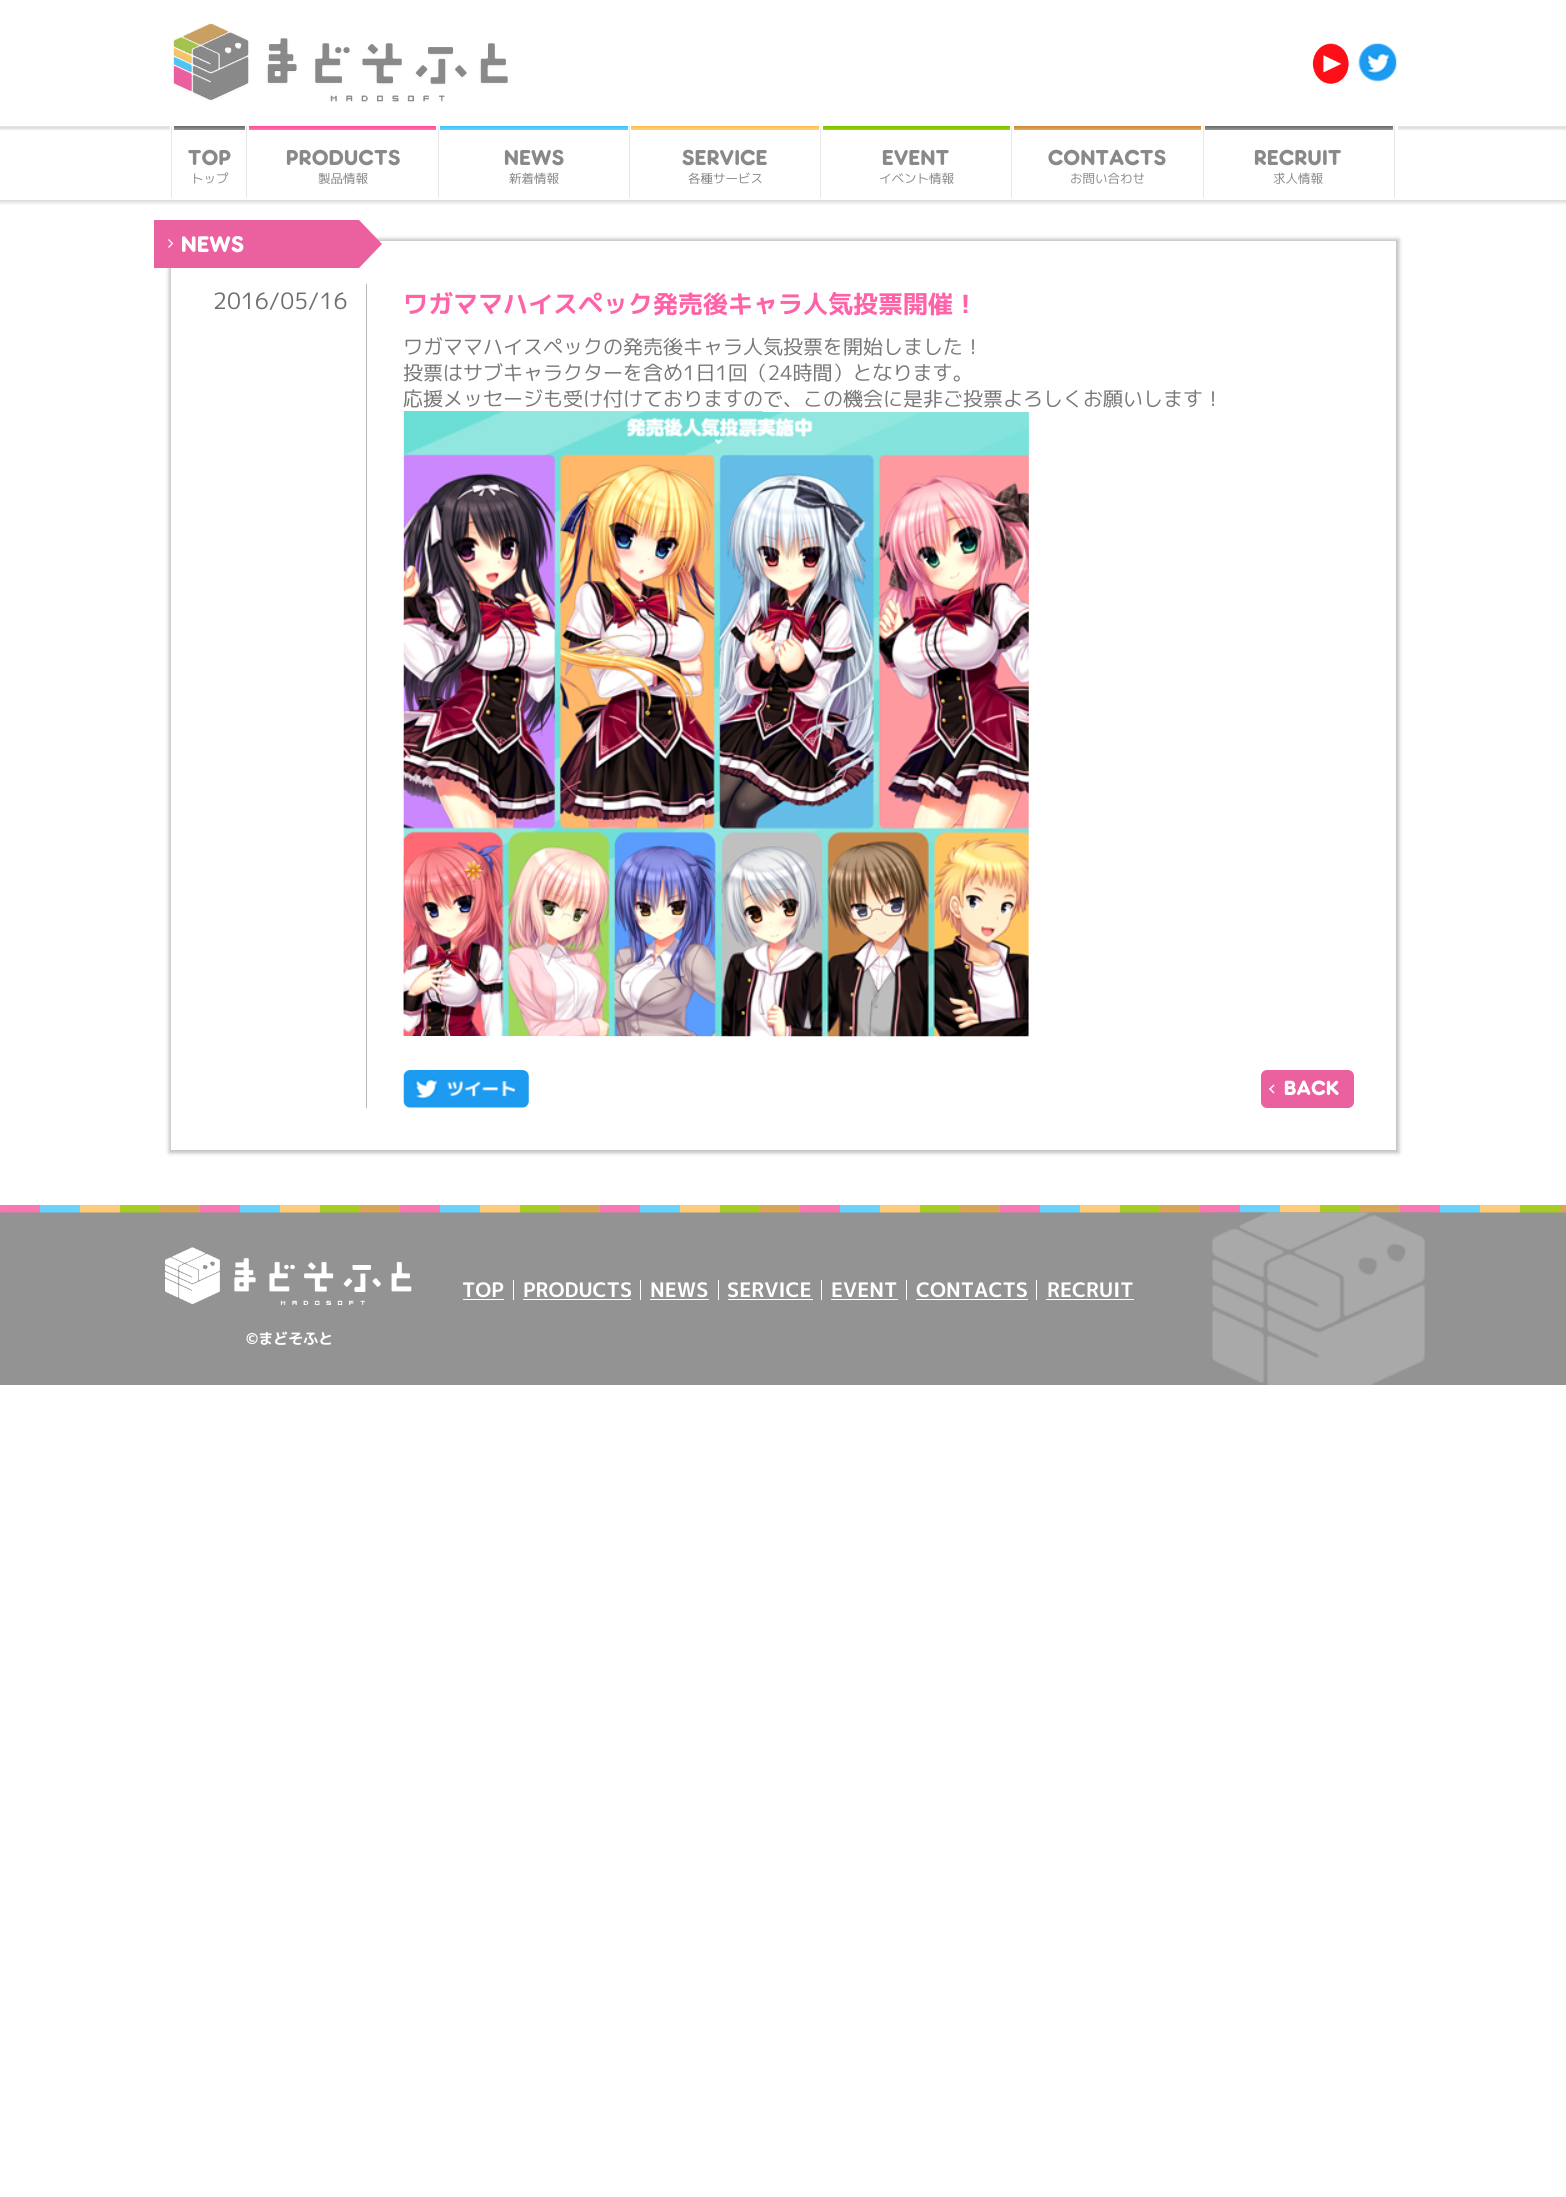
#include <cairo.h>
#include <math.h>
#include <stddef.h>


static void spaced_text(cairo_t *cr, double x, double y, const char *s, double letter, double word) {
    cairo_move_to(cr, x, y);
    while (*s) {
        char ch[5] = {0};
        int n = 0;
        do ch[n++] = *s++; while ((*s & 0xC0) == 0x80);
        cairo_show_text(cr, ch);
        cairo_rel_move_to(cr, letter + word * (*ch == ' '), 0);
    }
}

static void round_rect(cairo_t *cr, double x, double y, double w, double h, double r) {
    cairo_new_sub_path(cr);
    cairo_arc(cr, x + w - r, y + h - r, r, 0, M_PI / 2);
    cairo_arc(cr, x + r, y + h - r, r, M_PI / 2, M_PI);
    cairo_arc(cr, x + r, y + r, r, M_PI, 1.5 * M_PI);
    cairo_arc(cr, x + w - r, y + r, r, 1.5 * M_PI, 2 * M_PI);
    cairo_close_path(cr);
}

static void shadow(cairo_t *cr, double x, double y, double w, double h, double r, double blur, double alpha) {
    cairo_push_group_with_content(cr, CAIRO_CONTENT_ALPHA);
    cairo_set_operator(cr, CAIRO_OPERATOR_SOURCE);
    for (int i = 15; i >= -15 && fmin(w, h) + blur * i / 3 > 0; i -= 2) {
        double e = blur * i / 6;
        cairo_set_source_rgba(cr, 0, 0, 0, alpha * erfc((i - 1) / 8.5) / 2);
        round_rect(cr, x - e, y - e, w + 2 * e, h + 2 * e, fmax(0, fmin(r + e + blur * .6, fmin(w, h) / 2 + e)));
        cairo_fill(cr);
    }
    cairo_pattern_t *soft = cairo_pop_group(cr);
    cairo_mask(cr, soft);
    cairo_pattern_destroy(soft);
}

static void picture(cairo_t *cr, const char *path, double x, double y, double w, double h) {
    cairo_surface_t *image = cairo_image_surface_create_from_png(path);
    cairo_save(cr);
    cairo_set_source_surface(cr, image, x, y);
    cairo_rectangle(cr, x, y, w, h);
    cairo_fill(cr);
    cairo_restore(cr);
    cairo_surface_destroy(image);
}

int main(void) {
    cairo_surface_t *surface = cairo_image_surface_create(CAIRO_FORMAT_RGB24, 1566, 2197);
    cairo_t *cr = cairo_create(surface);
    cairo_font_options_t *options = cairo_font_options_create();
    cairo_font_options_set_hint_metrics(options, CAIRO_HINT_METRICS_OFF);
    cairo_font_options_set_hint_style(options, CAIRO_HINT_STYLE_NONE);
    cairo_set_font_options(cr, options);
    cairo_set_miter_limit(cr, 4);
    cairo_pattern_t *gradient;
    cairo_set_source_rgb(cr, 1, 1, 1);
    cairo_paint(cr);
    picture(cr, "img1.png", 173, 23, 335, 79);
    picture(cr, "img2.png", 1312, 43, 37, 41);
    picture(cr, "img3.png", 1358, 43, 39, 39);
    picture(cr, "img4.png", 0, 126, 1566, 79);
    cairo_set_source_rgb(cr, 1, 1, 1);
    cairo_rectangle(cr, 170, 126, 1228, 5);
    cairo_fill(cr);
    cairo_set_source_rgb(cr, 0.906, 0.906, 0.906);
    cairo_rectangle(cr, 171, 126, 1, 72);
    cairo_fill(cr);
    gradient = cairo_pattern_create_linear(209, 126, 209, 130);
    cairo_pattern_add_color_stop_rgba(gradient, 0, 0.404, 0.404, 0.404, 1);
    cairo_pattern_add_color_stop_rgba(gradient, 1, 0.596, 0.596, 0.596, 1);
    cairo_set_source(cr, gradient);
    cairo_pattern_destroy(gradient);
    cairo_rectangle(cr, 174, 126, 71, 4);
    cairo_fill(cr);
    cairo_select_font_face(cr, "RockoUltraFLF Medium", CAIRO_FONT_SLANT_NORMAL, CAIRO_FONT_WEIGHT_NORMAL);
    cairo_set_font_size(cr, 20);
    cairo_set_source_rgb(cr, 0.537, 0.537, 0.537);
    spaced_text(cr, 188, 165, "TOP", 0.5, 0);
    cairo_select_font_face(cr, "M PLUS 1p", CAIRO_FONT_SLANT_NORMAL, CAIRO_FONT_WEIGHT_NORMAL);
    cairo_set_font_size(cr, 12.5);
    cairo_move_to(cr, 191, 183);
    cairo_show_text(cr, "トップ");
    cairo_set_source_rgb(cr, 0.906, 0.906, 0.906);
    cairo_rectangle(cr, 246, 126, 1, 72);
    cairo_fill(cr);
    gradient = cairo_pattern_create_linear(343, 126, 343, 130);
    cairo_pattern_add_color_stop_rgba(gradient, 0, 1, 0.29, 0.58, 1);
    cairo_pattern_add_color_stop_rgba(gradient, 1, 1, 0.459, 0.718, 1);
    cairo_set_source(cr, gradient);
    cairo_pattern_destroy(gradient);
    cairo_rectangle(cr, 249, 126, 187, 4);
    cairo_fill(cr);
    cairo_select_font_face(cr, "RockoUltraFLF Medium", CAIRO_FONT_SLANT_NORMAL, CAIRO_FONT_WEIGHT_NORMAL);
    cairo_set_font_size(cr, 20);
    cairo_set_source_rgb(cr, 0.537, 0.537, 0.537);
    spaced_text(cr, 286, 165, "PRODUCTS", 0.5, 0);
    cairo_select_font_face(cr, "M PLUS 1p", CAIRO_FONT_SLANT_NORMAL, CAIRO_FONT_WEIGHT_NORMAL);
    cairo_set_font_size(cr, 12.5);
    cairo_move_to(cr, 318, 183);
    cairo_show_text(cr, "製品情報");
    cairo_set_source_rgb(cr, 0.906, 0.906, 0.906);
    cairo_rectangle(cr, 438, 126, 1, 72);
    cairo_fill(cr);
    gradient = cairo_pattern_create_linear(534, 126, 534, 130);
    cairo_pattern_add_color_stop_rgba(gradient, 0, 0.243, 0.753, 1, 1);
    cairo_pattern_add_color_stop_rgba(gradient, 1, 0.384, 0.831, 1, 1);
    cairo_set_source(cr, gradient);
    cairo_pattern_destroy(gradient);
    cairo_rectangle(cr, 440, 126, 188, 4);
    cairo_fill(cr);
    cairo_select_font_face(cr, "RockoUltraFLF Medium", CAIRO_FONT_SLANT_NORMAL, CAIRO_FONT_WEIGHT_NORMAL);
    cairo_set_font_size(cr, 20);
    cairo_set_source_rgb(cr, 0.537, 0.537, 0.537);
    spaced_text(cr, 504, 165, "NEWS", 0.5, 0);
    cairo_select_font_face(cr, "M PLUS 1p", CAIRO_FONT_SLANT_NORMAL, CAIRO_FONT_WEIGHT_NORMAL);
    cairo_set_font_size(cr, 12.5);
    cairo_move_to(cr, 509, 183);
    cairo_show_text(cr, "新着情報");
    cairo_set_source_rgb(cr, 0.906, 0.906, 0.906);
    cairo_rectangle(cr, 629, 126, 1, 72);
    cairo_fill(cr);
    gradient = cairo_pattern_create_linear(725, 126, 725, 130);
    cairo_pattern_add_color_stop_rgba(gradient, 0, 1, 0.737, 0.31, 1);
    cairo_pattern_add_color_stop_rgba(gradient, 1, 1, 0.824, 0.486, 1);
    cairo_set_source(cr, gradient);
    cairo_pattern_destroy(gradient);
    cairo_rectangle(cr, 631, 126, 188, 4);
    cairo_fill(cr);
    cairo_select_font_face(cr, "RockoUltraFLF Medium", CAIRO_FONT_SLANT_NORMAL, CAIRO_FONT_WEIGHT_NORMAL);
    cairo_set_font_size(cr, 20);
    cairo_set_source_rgb(cr, 0.537, 0.537, 0.537);
    spaced_text(cr, 682, 165, "SERVICE", 0.5, 0);
    cairo_select_font_face(cr, "M PLUS 1p", CAIRO_FONT_SLANT_NORMAL, CAIRO_FONT_WEIGHT_NORMAL);
    cairo_set_font_size(cr, 12.5);
    cairo_move_to(cr, 688, 183);
    cairo_show_text(cr, "各種サービス");
    cairo_set_source_rgb(cr, 0.906, 0.906, 0.906);
    cairo_rectangle(cr, 820, 126, 1, 72);
    cairo_fill(cr);
    gradient = cairo_pattern_create_linear(916, 126, 916, 130);
    cairo_pattern_add_color_stop_rgba(gradient, 0, 0.471, 0.745, 0, 1);
    cairo_pattern_add_color_stop_rgba(gradient, 1, 0.643, 0.827, 0, 1);
    cairo_set_source(cr, gradient);
    cairo_pattern_destroy(gradient);
    cairo_rectangle(cr, 823, 126, 187, 4);
    cairo_fill(cr);
    cairo_select_font_face(cr, "RockoUltraFLF Medium", CAIRO_FONT_SLANT_NORMAL, CAIRO_FONT_WEIGHT_NORMAL);
    cairo_set_font_size(cr, 20);
    cairo_set_source_rgb(cr, 0.537, 0.537, 0.537);
    spaced_text(cr, 882, 165, "EVENT", 0.5, 0);
    cairo_select_font_face(cr, "M PLUS 1p", CAIRO_FONT_SLANT_NORMAL, CAIRO_FONT_WEIGHT_NORMAL);
    cairo_set_font_size(cr, 12.5);
    cairo_move_to(cr, 879, 183);
    cairo_show_text(cr, "イベント情報");
    cairo_set_source_rgb(cr, 0.906, 0.906, 0.906);
    cairo_rectangle(cr, 1011, 126, 1, 72);
    cairo_fill(cr);
    gradient = cairo_pattern_create_linear(1108, 126, 1108, 130);
    cairo_pattern_add_color_stop_rgba(gradient, 0, 0.804, 0.525, 0.22, 1);
    cairo_pattern_add_color_stop_rgba(gradient, 1, 0.867, 0.678, 0.345, 1);
    cairo_set_source(cr, gradient);
    cairo_pattern_destroy(gradient);
    cairo_rectangle(cr, 1014, 126, 187, 4);
    cairo_fill(cr);
    cairo_select_font_face(cr, "RockoUltraFLF Medium", CAIRO_FONT_SLANT_NORMAL, CAIRO_FONT_WEIGHT_NORMAL);
    cairo_set_font_size(cr, 20);
    cairo_set_source_rgb(cr, 0.537, 0.537, 0.537);
    spaced_text(cr, 1048, 165, "CONTACTS", 0.5, 0);
    cairo_select_font_face(cr, "M PLUS 1p", CAIRO_FONT_SLANT_NORMAL, CAIRO_FONT_WEIGHT_NORMAL);
    cairo_set_font_size(cr, 12.5);
    cairo_move_to(cr, 1070, 183);
    cairo_show_text(cr, "お問い合わせ");
    cairo_set_source_rgb(cr, 0.906, 0.906, 0.906);
    cairo_rectangle(cr, 1203, 126, 1, 72);
    cairo_fill(cr);
    gradient = cairo_pattern_create_linear(1299, 126, 1299, 130);
    cairo_pattern_add_color_stop_rgba(gradient, 0, 0.404, 0.404, 0.404, 1);
    cairo_pattern_add_color_stop_rgba(gradient, 1, 0.596, 0.596, 0.596, 1);
    cairo_set_source(cr, gradient);
    cairo_pattern_destroy(gradient);
    cairo_rectangle(cr, 1205, 126, 188, 4);
    cairo_fill(cr);
    cairo_select_font_face(cr, "RockoUltraFLF Medium", CAIRO_FONT_SLANT_NORMAL, CAIRO_FONT_WEIGHT_NORMAL);
    cairo_set_font_size(cr, 20);
    cairo_set_source_rgb(cr, 0.537, 0.537, 0.537);
    spaced_text(cr, 1254, 165, "RECRUIT", 0.5, 0);
    cairo_select_font_face(cr, "M PLUS 1p", CAIRO_FONT_SLANT_NORMAL, CAIRO_FONT_WEIGHT_NORMAL);
    cairo_set_font_size(cr, 12.5);
    cairo_move_to(cr, 1273, 183);
    cairo_show_text(cr, "求人情報");
    cairo_set_source_rgb(cr, 0.906, 0.906, 0.906);
    cairo_rectangle(cr, 1394, 126, 1, 72);
    cairo_fill(cr);
    cairo_set_source_rgb(cr, 0, 0, 0);
    shadow(cr, 169, 239, 1230, 914, 0, 2, 0.25);
    cairo_set_source_rgb(cr, 1, 1, 1);
    cairo_rectangle(cr, 171, 241, 1225, 909);
    cairo_fill(cr);
    cairo_set_source_rgb(cr, 0.918, 0.376, 0.62);
    cairo_rectangle(cr, 154, 220, 205, 48);
    cairo_fill(cr);
    cairo_set_source_rgb(cr, 1, 1, 1);
    cairo_new_path(cr);
    cairo_move_to(cr, 169, 239);
    cairo_line_to(cr, 173, 243.5);
    cairo_line_to(cr, 172.5, 244.5);
    cairo_line_to(cr, 168, 240);
    cairo_close_path(cr);
    cairo_fill(cr);
    cairo_new_path(cr);
    cairo_move_to(cr, 172.5, 242.5);
    cairo_line_to(cr, 173, 243.5);
    cairo_line_to(cr, 169, 248);
    cairo_line_to(cr, 168, 247);
    cairo_close_path(cr);
    cairo_fill(cr);
    cairo_select_font_face(cr, "RockoUltraFLF Medium", CAIRO_FONT_SLANT_NORMAL, CAIRO_FONT_WEIGHT_NORMAL);
    cairo_set_font_size(cr, 21);
    spaced_text(cr, 181, 252, "NEWS", 0.5, 0);
    cairo_set_source_rgb(cr, 0.918, 0.376, 0.62);
    cairo_new_path(cr);
    cairo_move_to(cr, 359, 268);
    cairo_line_to(cr, 359, 220);
    cairo_line_to(cr, 382, 244);
    cairo_close_path(cr);
    cairo_fill(cr);
    cairo_set_source_rgb(cr, 0.714, 0.714, 0.714);
    cairo_rectangle(cr, 366, 284, 1, 824);
    cairo_fill(cr);
    cairo_select_font_face(cr, "M PLUS 1p", CAIRO_FONT_SLANT_NORMAL, CAIRO_FONT_WEIGHT_NORMAL);
    cairo_set_font_size(cr, 22.5);
    cairo_set_source_rgb(cr, 0.431, 0.431, 0.431);
    cairo_move_to(cr, 213, 309);
    cairo_show_text(cr, "2016/05/16");
    cairo_select_font_face(cr, "M PLUS 1p", CAIRO_FONT_SLANT_NORMAL, CAIRO_FONT_WEIGHT_BOLD);
    cairo_set_font_size(cr, 25);
    cairo_set_source_rgb(cr, 1, 0.384, 0.655);
    cairo_move_to(cr, 403, 313);
    cairo_show_text(cr, "ワガママハイスペック発売後キャラ人気投票開催！");
    cairo_select_font_face(cr, "M PLUS 1p", CAIRO_FONT_SLANT_NORMAL, CAIRO_FONT_WEIGHT_NORMAL);
    cairo_set_font_size(cr, 20);
    cairo_set_source_rgb(cr, 0.471, 0.471, 0.471);
    cairo_move_to(cr, 403, 354);
    cairo_show_text(cr, "ワガママハイスペックの発売後キャラ人気投票を開始しました！");
    cairo_move_to(cr, 403, 380);
    cairo_show_text(cr, "投票はサブキャラクターを含め1日1回（24時間）となります。");
    cairo_move_to(cr, 403, 406);
    cairo_show_text(cr, "応援メッセージも受け付けておりますので、この機会に是非ご投票よろしくお願いします！");
    picture(cr, "img5.png", 403, 411, 626, 626);
    picture(cr, "img6.png", 403, 1070, 126, 38);
    cairo_set_source_rgb(cr, 0.918, 0.376, 0.62);
    round_rect(cr, 1261, 1070, 93, 38, 6);
    cairo_fill(cr);
    cairo_set_source_rgb(cr, 1, 1, 1);
    cairo_new_path(cr);
    cairo_move_to(cr, 1273.5, 1093.5);
    cairo_line_to(cr, 1269, 1089);
    cairo_line_to(cr, 1270, 1088);
    cairo_line_to(cr, 1274.5, 1092.5);
    cairo_close_path(cr);
    cairo_fill(cr);
    cairo_new_path(cr);
    cairo_move_to(cr, 1270, 1090);
    cairo_line_to(cr, 1269, 1089);
    cairo_line_to(cr, 1273.5, 1084.5);
    cairo_line_to(cr, 1274.5, 1085.5);
    cairo_close_path(cr);
    cairo_fill(cr);
    cairo_select_font_face(cr, "RockoUltraFLF Medium", CAIRO_FONT_SLANT_NORMAL, CAIRO_FONT_WEIGHT_NORMAL);
    cairo_set_font_size(cr, 19);
    spaced_text(cr, 1284, 1095, "BACK", 0.5, 0);
    cairo_set_source_rgb(cr, 0.576, 0.576, 0.576);
    cairo_rectangle(cr, 0, 1212, 1566, 173);
    cairo_fill(cr);
    picture(cr, "img7.png", 0, 1205, 1566, 8);
    picture(cr, "img8.png", 1211, 1212, 222, 173);
    picture(cr, "img9.png", 165, 1247, 247, 58);
    cairo_select_font_face(cr, "M PLUS 1p", CAIRO_FONT_SLANT_NORMAL, CAIRO_FONT_WEIGHT_BOLD);
    cairo_set_font_size(cr, 20);
    cairo_set_source_rgb(cr, 1, 1, 1);
    cairo_move_to(cr, 462, 1297);
    cairo_show_text(cr, "TOP");
    cairo_rectangle(cr, 463, 1299, 41, 1);
    cairo_fill(cr);
    cairo_rectangle(cr, 513, 1280, 1, 20);
    cairo_fill(cr);
    cairo_move_to(cr, 523, 1297);
    cairo_show_text(cr, "PRODUCTS");
    cairo_rectangle(cr, 523, 1299, 108, 1);
    cairo_fill(cr);
    cairo_rectangle(cr, 640, 1280, 1, 20);
    cairo_fill(cr);
    cairo_move_to(cr, 650, 1297);
    cairo_show_text(cr, "NEWS");
    cairo_rectangle(cr, 650, 1299, 59, 1);
    cairo_fill(cr);
    cairo_rectangle(cr, 718, 1280, 1, 20);
    cairo_fill(cr);
    cairo_move_to(cr, 727, 1297);
    cairo_show_text(cr, "SERVICE");
    cairo_rectangle(cr, 728, 1299, 85, 1);
    cairo_fill(cr);
    cairo_rectangle(cr, 821, 1280, 1, 20);
    cairo_fill(cr);
    cairo_move_to(cr, 831, 1297);
    cairo_show_text(cr, "EVENT");
    cairo_rectangle(cr, 831, 1299, 67, 1);
    cairo_fill(cr);
    cairo_rectangle(cr, 906, 1280, 1, 20);
    cairo_fill(cr);
    cairo_move_to(cr, 916, 1297);
    cairo_show_text(cr, "CONTACTS");
    cairo_rectangle(cr, 916, 1299, 112, 1);
    cairo_fill(cr);
    cairo_rectangle(cr, 1036, 1280, 1, 20);
    cairo_fill(cr);
    cairo_move_to(cr, 1047, 1297);
    cairo_show_text(cr, "RECRUIT");
    cairo_rectangle(cr, 1046, 1299, 88, 1);
    cairo_fill(cr);
    cairo_set_font_size(cr, 15);
    cairo_move_to(cr, 246, 1344);
    cairo_show_text(cr, "©まどそふと");
    cairo_surface_write_to_png(surface, "page.png");
    cairo_font_options_destroy(options);
    cairo_destroy(cr);
    cairo_surface_destroy(surface);
    return 0;
}
